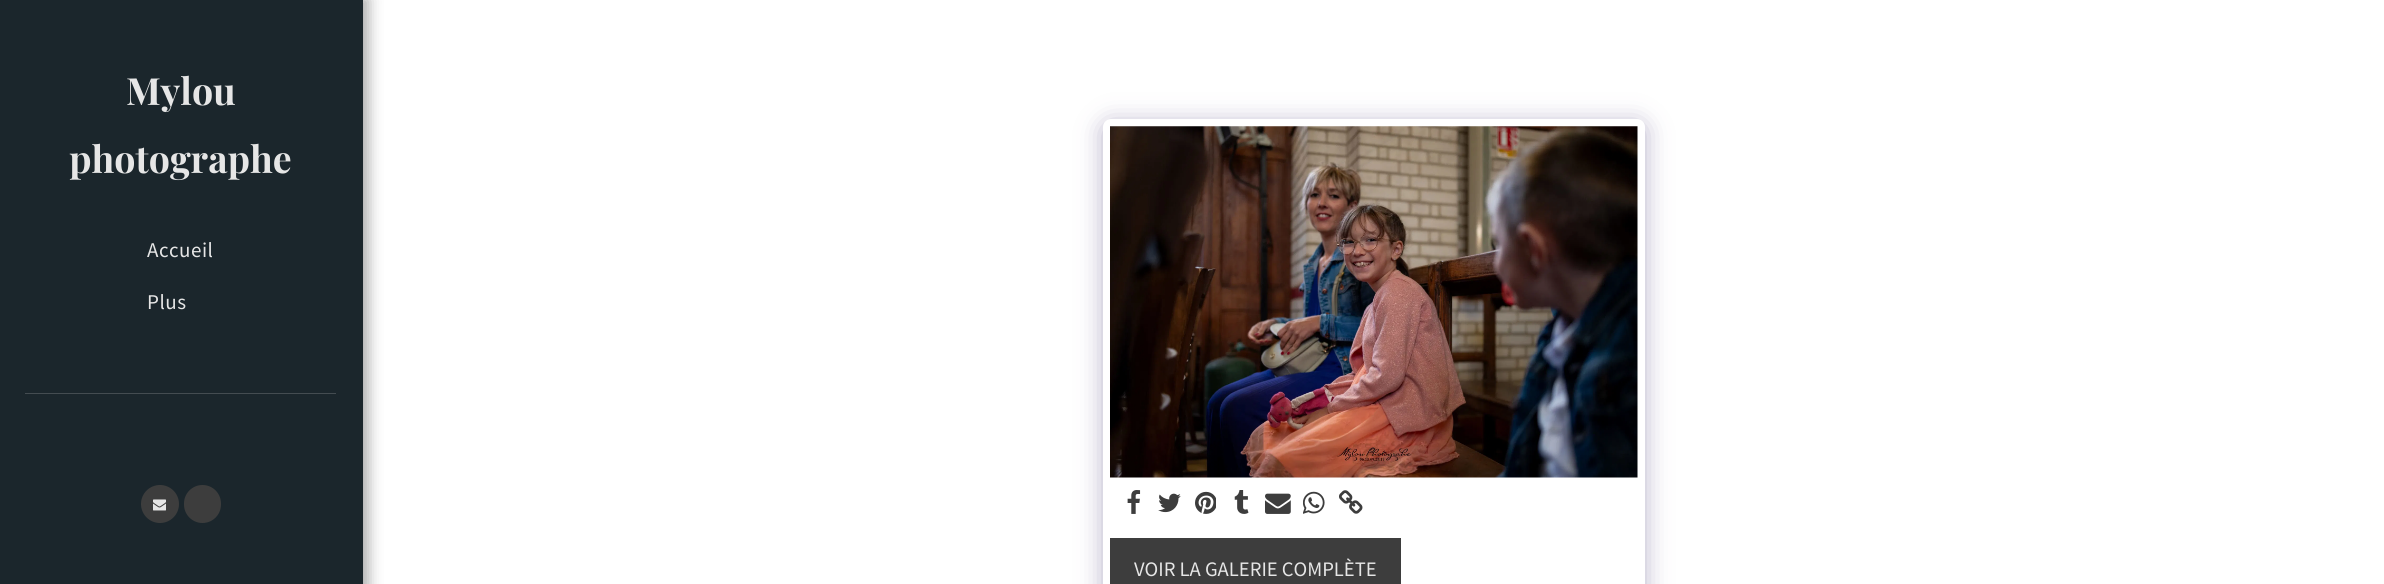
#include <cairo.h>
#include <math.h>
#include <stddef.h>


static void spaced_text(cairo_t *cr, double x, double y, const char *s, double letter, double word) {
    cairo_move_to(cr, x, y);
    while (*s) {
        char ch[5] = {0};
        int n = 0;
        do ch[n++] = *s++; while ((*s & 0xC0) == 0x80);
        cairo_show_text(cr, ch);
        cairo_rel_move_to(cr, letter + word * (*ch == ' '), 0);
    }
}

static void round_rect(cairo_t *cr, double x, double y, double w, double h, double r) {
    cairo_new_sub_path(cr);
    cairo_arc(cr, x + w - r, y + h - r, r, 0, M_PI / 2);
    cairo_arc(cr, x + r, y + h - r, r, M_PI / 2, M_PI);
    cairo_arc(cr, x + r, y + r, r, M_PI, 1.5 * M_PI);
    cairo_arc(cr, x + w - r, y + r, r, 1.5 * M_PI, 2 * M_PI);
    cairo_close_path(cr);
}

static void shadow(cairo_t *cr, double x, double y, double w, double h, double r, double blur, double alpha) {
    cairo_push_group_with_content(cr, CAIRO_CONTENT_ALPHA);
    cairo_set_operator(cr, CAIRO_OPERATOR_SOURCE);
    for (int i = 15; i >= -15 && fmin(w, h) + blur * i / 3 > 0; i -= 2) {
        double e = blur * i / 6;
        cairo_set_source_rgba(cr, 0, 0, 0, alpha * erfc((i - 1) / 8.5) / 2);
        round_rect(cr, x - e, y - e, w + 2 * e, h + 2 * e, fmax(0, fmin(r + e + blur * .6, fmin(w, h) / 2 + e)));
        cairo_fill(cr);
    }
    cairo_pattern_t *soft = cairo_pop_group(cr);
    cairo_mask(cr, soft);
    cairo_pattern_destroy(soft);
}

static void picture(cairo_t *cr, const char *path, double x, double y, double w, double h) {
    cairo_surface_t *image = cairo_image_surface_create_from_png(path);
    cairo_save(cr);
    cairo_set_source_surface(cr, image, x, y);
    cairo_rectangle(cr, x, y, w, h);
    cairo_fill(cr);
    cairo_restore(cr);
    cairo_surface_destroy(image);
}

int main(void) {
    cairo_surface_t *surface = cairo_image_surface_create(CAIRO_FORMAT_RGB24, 2384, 584);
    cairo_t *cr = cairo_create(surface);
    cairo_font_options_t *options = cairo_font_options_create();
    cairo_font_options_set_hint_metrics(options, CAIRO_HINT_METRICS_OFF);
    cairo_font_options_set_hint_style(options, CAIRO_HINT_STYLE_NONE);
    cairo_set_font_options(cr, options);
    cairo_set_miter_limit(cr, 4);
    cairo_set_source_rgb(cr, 1, 1, 1);
    cairo_paint(cr);
    cairo_set_source_rgb(cr, 0, 0, 0);
    shadow(cr, 0, -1, 368, 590, 0, 7.5, 0.35);
    cairo_set_source_rgb(cr, 0.106, 0.149, 0.173);
    cairo_rectangle(cr, 0, 0, 363, 584);
    cairo_fill(cr);
    cairo_select_font_face(cr, "Playfair Display", CAIRO_FONT_SLANT_NORMAL, CAIRO_FONT_WEIGHT_BOLD);
    cairo_set_font_size(cr, 37.5);
    cairo_set_source_rgb(cr, 0.902, 0.902, 0.902);
    cairo_move_to(cr, 126, 105);
    cairo_show_text(cr, "Mylou");
    cairo_move_to(cr, 69, 173);
    cairo_show_text(cr, "photographe");
    cairo_select_font_face(cr, "Source Sans Pro", CAIRO_FONT_SLANT_NORMAL, CAIRO_FONT_WEIGHT_NORMAL);
    cairo_set_font_size(cr, 21);
    spaced_text(cr, 147, 257, "Accueil", 0.5, 0);
    spaced_text(cr, 147, 309, "Plus", 0.5, 0);
    cairo_set_source_rgb(cr, 0.267, 0.298, 0.318);
    cairo_rectangle(cr, 25, 393, 311, 1);
    cairo_fill(cr);
    cairo_set_source_rgb(cr, 0.239, 0.239, 0.239);
    cairo_arc(cr, 160, 504, 19, 0, 2 * M_PI);
    cairo_fill(cr);
    picture(cr, "img1.png", 153, 499, 13, 12);
    round_rect(cr, 184, 485, 37, 38, 18.5);
    cairo_fill(cr);
    cairo_set_source_rgb(cr, 0.302, 0.247, 0.478);
    shadow(cr, 1103, 123, 542, 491, 8, 12.5, 0.4);
    cairo_set_source_rgb(cr, 1, 1, 1);
    round_rect(cr, 1103, 119, 542, 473, 8);
    cairo_fill(cr);
    picture(cr, "img2.png", 1110, 126, 528, 352);
    picture(cr, "img3.png", 1127, 490, 14, 24);
    picture(cr, "img4.png", 1158, 493, 23, 20);
    picture(cr, "img5.png", 1195, 491, 21, 23);
    picture(cr, "img6.png", 1234, 490, 15, 24);
    picture(cr, "img7.png", 1265, 493, 26, 21);
    picture(cr, "img8.png", 1303, 491, 22, 23);
    picture(cr, "img9.png", 1339, 490, 24, 24);
    cairo_set_source_rgb(cr, 0.239, 0.239, 0.239);
    cairo_rectangle(cr, 1110, 538, 291, 46);
    cairo_fill(cr);
    cairo_set_font_size(cr, 20.6);
    cairo_set_source_rgb(cr, 0.902, 0.902, 0.902);
    cairo_move_to(cr, 1134, 576);
    cairo_show_text(cr, "VOIR LA GALERIE COMPLÈTE");
    cairo_surface_write_to_png(surface, "page.png");
    cairo_font_options_destroy(options);
    cairo_destroy(cr);
    cairo_surface_destroy(surface);
    return 0;
}
